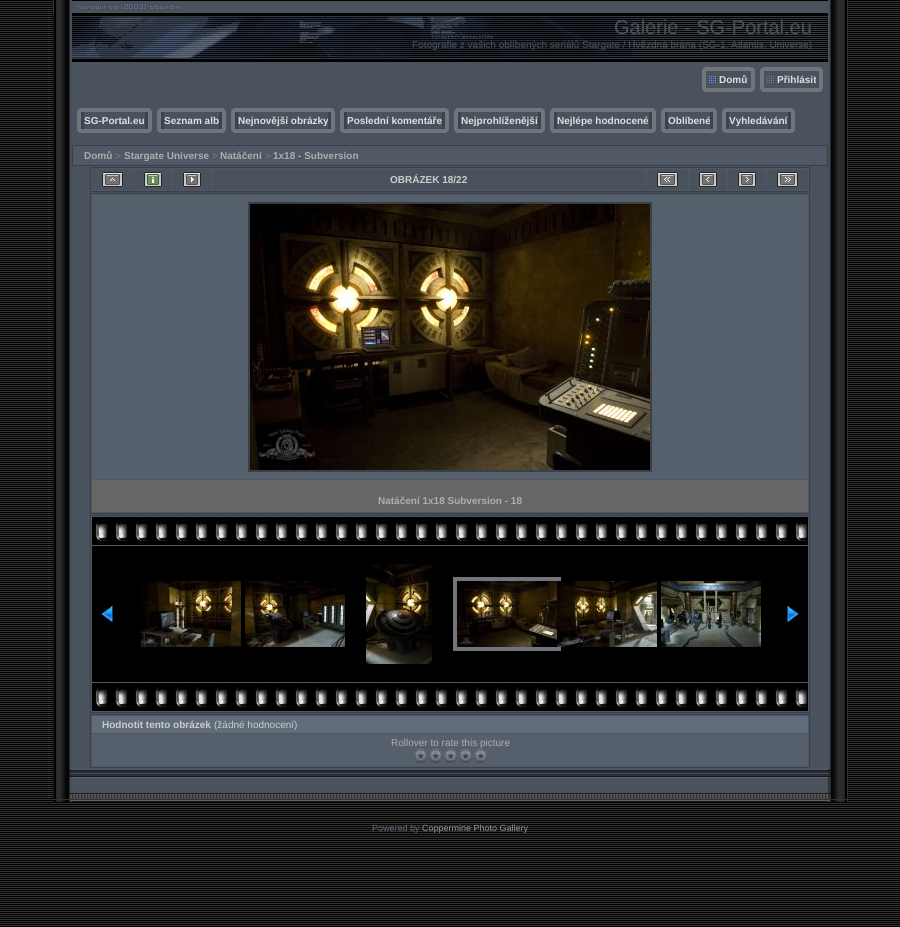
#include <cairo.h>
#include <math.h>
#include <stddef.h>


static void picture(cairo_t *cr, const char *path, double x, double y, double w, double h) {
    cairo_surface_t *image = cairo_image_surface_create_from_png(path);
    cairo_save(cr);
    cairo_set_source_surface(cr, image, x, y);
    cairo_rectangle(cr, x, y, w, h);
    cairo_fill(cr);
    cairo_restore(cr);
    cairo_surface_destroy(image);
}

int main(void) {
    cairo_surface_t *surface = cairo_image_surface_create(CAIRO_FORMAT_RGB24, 900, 927);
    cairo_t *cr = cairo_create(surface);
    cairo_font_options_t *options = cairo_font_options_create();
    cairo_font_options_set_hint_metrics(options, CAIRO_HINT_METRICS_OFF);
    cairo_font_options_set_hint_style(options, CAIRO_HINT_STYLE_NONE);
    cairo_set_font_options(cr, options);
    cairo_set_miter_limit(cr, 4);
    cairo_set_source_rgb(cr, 0, 0, 0);
    cairo_paint(cr);
    picture(cr, "img1.png", 0, 1, 900, 925);
    cairo_set_source_rgb(cr, 0.2, 0.2, 0.2);
    cairo_rectangle(cr, 53, 0, 1, 13);
    cairo_fill(cr);
    picture(cr, "img2.png", 54, 0, 18, 62);
    picture(cr, "img3.png", 72, 1, 756, 61);
    picture(cr, "img4.png", 72, 3, 561, 55);
    cairo_select_font_face(cr, "Liberation Sans", CAIRO_FONT_SLANT_NORMAL, CAIRO_FONT_WEIGHT_NORMAL);
    cairo_set_font_size(cr, 20);
    cairo_set_source_rgb(cr, 0.298, 0.318, 0.341);
    cairo_move_to(cr, 614, 34);
    cairo_show_text(cr, "Galerie - SG-Portal.eu");
    cairo_set_font_size(cr, 10);
    cairo_move_to(cr, 412, 48);
    cairo_show_text(cr, "Fotografie z vašich oblíbených seriálů Stargate / Hvězdná brána (SG-1, Atlantis, Universe)");
    picture(cr, "img5.png", 828, 0, 19, 62);
    cairo_set_source_rgb(cr, 0.2, 0.2, 0.2);
    cairo_rectangle(cr, 847, 0, 1, 801);
    cairo_fill(cr);
    picture(cr, "img6.png", 54, 62, 18, 707);
    cairo_set_source_rgb(cr, 0.286, 0.322, 0.365);
    cairo_rectangle(cr, 72, 62, 756, 707);
    cairo_fill(cr);
    picture(cr, "img7.png", 702, 67, 17, 25);
    picture(cr, "img8.png", 719, 67, 29, 25);
    cairo_select_font_face(cr, "Liberation Sans", CAIRO_FONT_SLANT_NORMAL, CAIRO_FONT_WEIGHT_BOLD);
    cairo_set_source_rgb(cr, 0.875, 0.875, 0.875);
    cairo_move_to(cr, 719, 83);
    cairo_show_text(cr, "Domů");
    picture(cr, "img9.png", 748, 67, 7, 25);
    picture(cr, "img10.png", 760, 67, 17, 25);
    picture(cr, "img11.png", 777, 67, 39, 25);
    cairo_move_to(cr, 777, 83);
    cairo_show_text(cr, "Přihlásit");
    picture(cr, "img9.png", 816, 67, 7, 25);
    picture(cr, "img12.png", 77, 108, 7, 25);
    picture(cr, "img13.png", 84, 108, 61, 25);
    cairo_move_to(cr, 84, 124);
    cairo_show_text(cr, "SG-Portal.eu");
    picture(cr, "img14.png", 145, 108, 7, 25);
    picture(cr, "img12.png", 157, 108, 7, 25);
    picture(cr, "img15.png", 164, 108, 55, 25);
    cairo_move_to(cr, 164, 124);
    cairo_show_text(cr, "Seznam alb");
    picture(cr, "img14.png", 219, 108, 7, 25);
    picture(cr, "img12.png", 231, 108, 7, 25);
    picture(cr, "img16.png", 238, 108, 90, 25);
    cairo_move_to(cr, 238, 124);
    cairo_show_text(cr, "Nejnovější obrázky");
    picture(cr, "img14.png", 328, 108, 7, 25);
    picture(cr, "img12.png", 340, 108, 7, 25);
    picture(cr, "img17.png", 347, 108, 95, 25);
    cairo_move_to(cr, 347, 124);
    cairo_show_text(cr, "Poslední komentáře");
    picture(cr, "img14.png", 442, 108, 7, 25);
    picture(cr, "img12.png", 454, 108, 7, 25);
    picture(cr, "img18.png", 461, 108, 77, 25);
    cairo_move_to(cr, 461, 124);
    cairo_show_text(cr, "Nejprohlíženější");
    picture(cr, "img14.png", 538, 108, 7, 25);
    picture(cr, "img12.png", 550, 108, 7, 25);
    picture(cr, "img19.png", 557, 108, 92, 25);
    cairo_move_to(cr, 557, 124);
    cairo_show_text(cr, "Nejlépe hodnocené");
    picture(cr, "img14.png", 649, 108, 7, 25);
    picture(cr, "img12.png", 661, 108, 7, 25);
    picture(cr, "img20.png", 668, 108, 42, 25);
    cairo_move_to(cr, 668, 124);
    cairo_show_text(cr, "Oblíbené");
    picture(cr, "img14.png", 710, 108, 7, 25);
    picture(cr, "img12.png", 722, 108, 7, 25);
    picture(cr, "img21.png", 729, 108, 59, 25);
    cairo_move_to(cr, 729, 124);
    cairo_show_text(cr, "Vyhledávání");
    picture(cr, "img14.png", 788, 108, 7, 25);
    cairo_set_source_rgb(cr, 0.31, 0.345, 0.392);
    cairo_rectangle(cr, 72.5, 145.5, 755, 20);
    cairo_fill_preserve(cr);
    cairo_set_source_rgb(cr, 0.224, 0.251, 0.286);
    cairo_set_line_width(cr, 1);
    cairo_stroke(cr);
    cairo_set_source_rgb(cr, 0.682, 0.682, 0.682);
    cairo_move_to(cr, 84, 159);
    cairo_show_text(cr, "Domů");
    cairo_set_source_rgb(cr, 0.416, 0.467, 0.525);
    cairo_move_to(cr, 115, 159);
    cairo_show_text(cr, ">");
    cairo_set_source_rgb(cr, 0.682, 0.682, 0.682);
    cairo_move_to(cr, 124, 159);
    cairo_show_text(cr, "Stargate Universe");
    cairo_set_source_rgb(cr, 0.416, 0.467, 0.525);
    cairo_move_to(cr, 212, 159);
    cairo_show_text(cr, ">");
    cairo_set_source_rgb(cr, 0.682, 0.682, 0.682);
    cairo_move_to(cr, 220, 159);
    cairo_show_text(cr, "Natáčení");
    cairo_set_source_rgb(cr, 0.416, 0.467, 0.525);
    cairo_move_to(cr, 265, 159);
    cairo_show_text(cr, ">");
    cairo_set_source_rgb(cr, 0.682, 0.682, 0.682);
    cairo_move_to(cr, 273, 159);
    cairo_show_text(cr, "1x18 - Subversion");
    cairo_set_source_rgb(cr, 0.31, 0.345, 0.392);
    cairo_rectangle(cr, 90.5, 167.5, 719, 24);
    cairo_fill_preserve(cr);
    cairo_set_source_rgb(cr, 0.224, 0.251, 0.286);
    cairo_stroke(cr);
    cairo_set_source_rgb(cr, 0.286, 0.322, 0.365);
    cairo_rectangle(cr, 92, 169, 41, 21);
    cairo_fill(cr);
    picture(cr, "img22.png", 102, 172, 21, 15);
    cairo_rectangle(cr, 134, 169, 38, 21);
    cairo_fill(cr);
    picture(cr, "img23.png", 144, 172, 18, 15);
    cairo_rectangle(cr, 173, 169, 38, 21);
    cairo_fill(cr);
    picture(cr, "img24.png", 183, 172, 18, 15);
    cairo_rectangle(cr, 212, 169, 434, 21);
    cairo_fill(cr);
    cairo_set_source_rgb(cr, 0.8, 0.8, 0.8);
    cairo_move_to(cr, 390, 183);
    cairo_show_text(cr, "OBRÁZEK 18/22");
    cairo_set_source_rgb(cr, 0.286, 0.322, 0.365);
    cairo_rectangle(cr, 647, 169, 41, 21);
    cairo_fill(cr);
    picture(cr, "img25.png", 657, 172, 21, 15);
    cairo_rectangle(cr, 689, 169, 38, 21);
    cairo_fill(cr);
    picture(cr, "img26.png", 699, 172, 18, 15);
    cairo_rectangle(cr, 728, 169, 38, 21);
    cairo_fill(cr);
    picture(cr, "img27.png", 738, 172, 18, 15);
    cairo_rectangle(cr, 767, 169, 41, 21);
    cairo_fill(cr);
    picture(cr, "img28.png", 777, 172, 21, 15);
    cairo_set_source_rgb(cr, 0.31, 0.345, 0.392);
    cairo_rectangle(cr, 90.5, 193.5, 719, 320);
    cairo_fill_preserve(cr);
    cairo_set_source_rgb(cr, 0.224, 0.251, 0.286);
    cairo_stroke(cr);
    cairo_set_source_rgb(cr, 0.337, 0.376, 0.427);
    cairo_rectangle(cr, 92, 195, 716, 284);
    cairo_fill(cr);
    cairo_rectangle(cr, 249, 203, 402, 268);
    cairo_set_source_rgb(cr, 0.224, 0.251, 0.282);
    cairo_set_line_width(cr, 2);
    cairo_stroke(cr);
    picture(cr, "img29.png", 250, 204, 400, 266);
    cairo_set_source_rgb(cr, 0.4, 0.4, 0.4);
    cairo_rectangle(cr, 92, 480, 716, 32);
    cairo_fill(cr);
    cairo_set_source_rgb(cr, 0.682, 0.682, 0.682);
    cairo_move_to(cr, 378, 504);
    cairo_show_text(cr, "Natáčení 1x18 Subversion - 18");
    cairo_set_source_rgb(cr, 0.31, 0.345, 0.392);
    cairo_rectangle(cr, 90.5, 515.5, 719, 197);
    cairo_fill_preserve(cr);
    cairo_set_source_rgb(cr, 0.224, 0.251, 0.286);
    cairo_set_line_width(cr, 1);
    cairo_stroke(cr);
    cairo_set_source_rgb(cr, 0, 0, 0);
    cairo_rectangle(cr, 92, 517, 716, 28);
    cairo_fill(cr);
    picture(cr, "img30.png", 95, 517, 713, 24);
    cairo_rectangle(cr, 92, 546, 716, 136);
    cairo_fill(cr);
    picture(cr, "img31.png", 101, 606, 12, 16);
    picture(cr, "img32.png", 141, 581, 100, 66);
    picture(cr, "img33.png", 245, 581, 100, 66);
    picture(cr, "img34.png", 366, 564, 66, 100);
    cairo_rectangle(cr, 455, 579, 104, 70);
    cairo_set_source_rgb(cr, 0.447, 0.463, 0.486);
    cairo_set_line_width(cr, 4);
    cairo_stroke(cr);
    picture(cr, "img35.png", 457, 581, 100, 66);
    picture(cr, "img36.png", 557, 581, 100, 66);
    picture(cr, "img37.png", 661, 581, 100, 66);
    picture(cr, "img38.png", 787, 606, 12, 16);
    cairo_set_source_rgb(cr, 0, 0, 0);
    cairo_rectangle(cr, 92, 683, 716, 28);
    cairo_fill(cr);
    picture(cr, "img30.png", 95, 683, 713, 24);
    cairo_set_source_rgb(cr, 0.31, 0.345, 0.392);
    cairo_rectangle(cr, 90.5, 714.5, 719, 53);
    cairo_fill_preserve(cr);
    cairo_set_source_rgb(cr, 0.224, 0.251, 0.286);
    cairo_set_line_width(cr, 1);
    cairo_stroke(cr);
    cairo_set_source_rgb(cr, 0.38, 0.424, 0.478);
    cairo_rectangle(cr, 92, 716, 716, 17);
    cairo_fill(cr);
    cairo_set_source_rgb(cr, 0.8, 0.8, 0.8);
    cairo_move_to(cr, 102, 728);
    cairo_show_text(cr, "Hodnotit tento obrázek");
    cairo_select_font_face(cr, "Liberation Sans", CAIRO_FONT_SLANT_NORMAL, CAIRO_FONT_WEIGHT_NORMAL);
    cairo_move_to(cr, 214, 728);
    cairo_show_text(cr, "(žádné hodnocení)");
    cairo_set_source_rgb(cr, 0.337, 0.376, 0.427);
    cairo_rectangle(cr, 92, 734, 716, 32);
    cairo_fill(cr);
    cairo_set_source_rgb(cr, 0.682, 0.682, 0.682);
    cairo_move_to(cr, 391, 746);
    cairo_show_text(cr, "Rollover to rate this picture");
    picture(cr, "img39.png", 413, 748, 15, 15);
    picture(cr, "img39.png", 428, 748, 15, 15);
    picture(cr, "img39.png", 443, 748, 15, 15);
    picture(cr, "img39.png", 458, 748, 15, 15);
    picture(cr, "img39.png", 473, 748, 15, 15);
    picture(cr, "img40.png", 828, 62, 19, 707);
    picture(cr, "img41.png", 54, 800, 18, 2);
    picture(cr, "img42.png", 54, 769, 18, 31);
    picture(cr, "img43.png", 72, 769, 756, 33);
    picture(cr, "img44.png", 828, 800, 19, 2);
    picture(cr, "img45.png", 828, 769, 19, 31);
    cairo_set_font_size(cr, 9);
    cairo_set_source_rgb(cr, 0.38, 0.424, 0.478);
    cairo_move_to(cr, 372, 831);
    cairo_show_text(cr, "Powered by");
    cairo_set_source_rgb(cr, 0.58, 0.58, 0.58);
    cairo_move_to(cr, 422, 831);
    cairo_show_text(cr, "Coppermine Photo Gallery");
    cairo_surface_write_to_png(surface, "page.png");
    cairo_font_options_destroy(options);
    cairo_destroy(cr);
    cairo_surface_destroy(surface);
    return 0;
}
